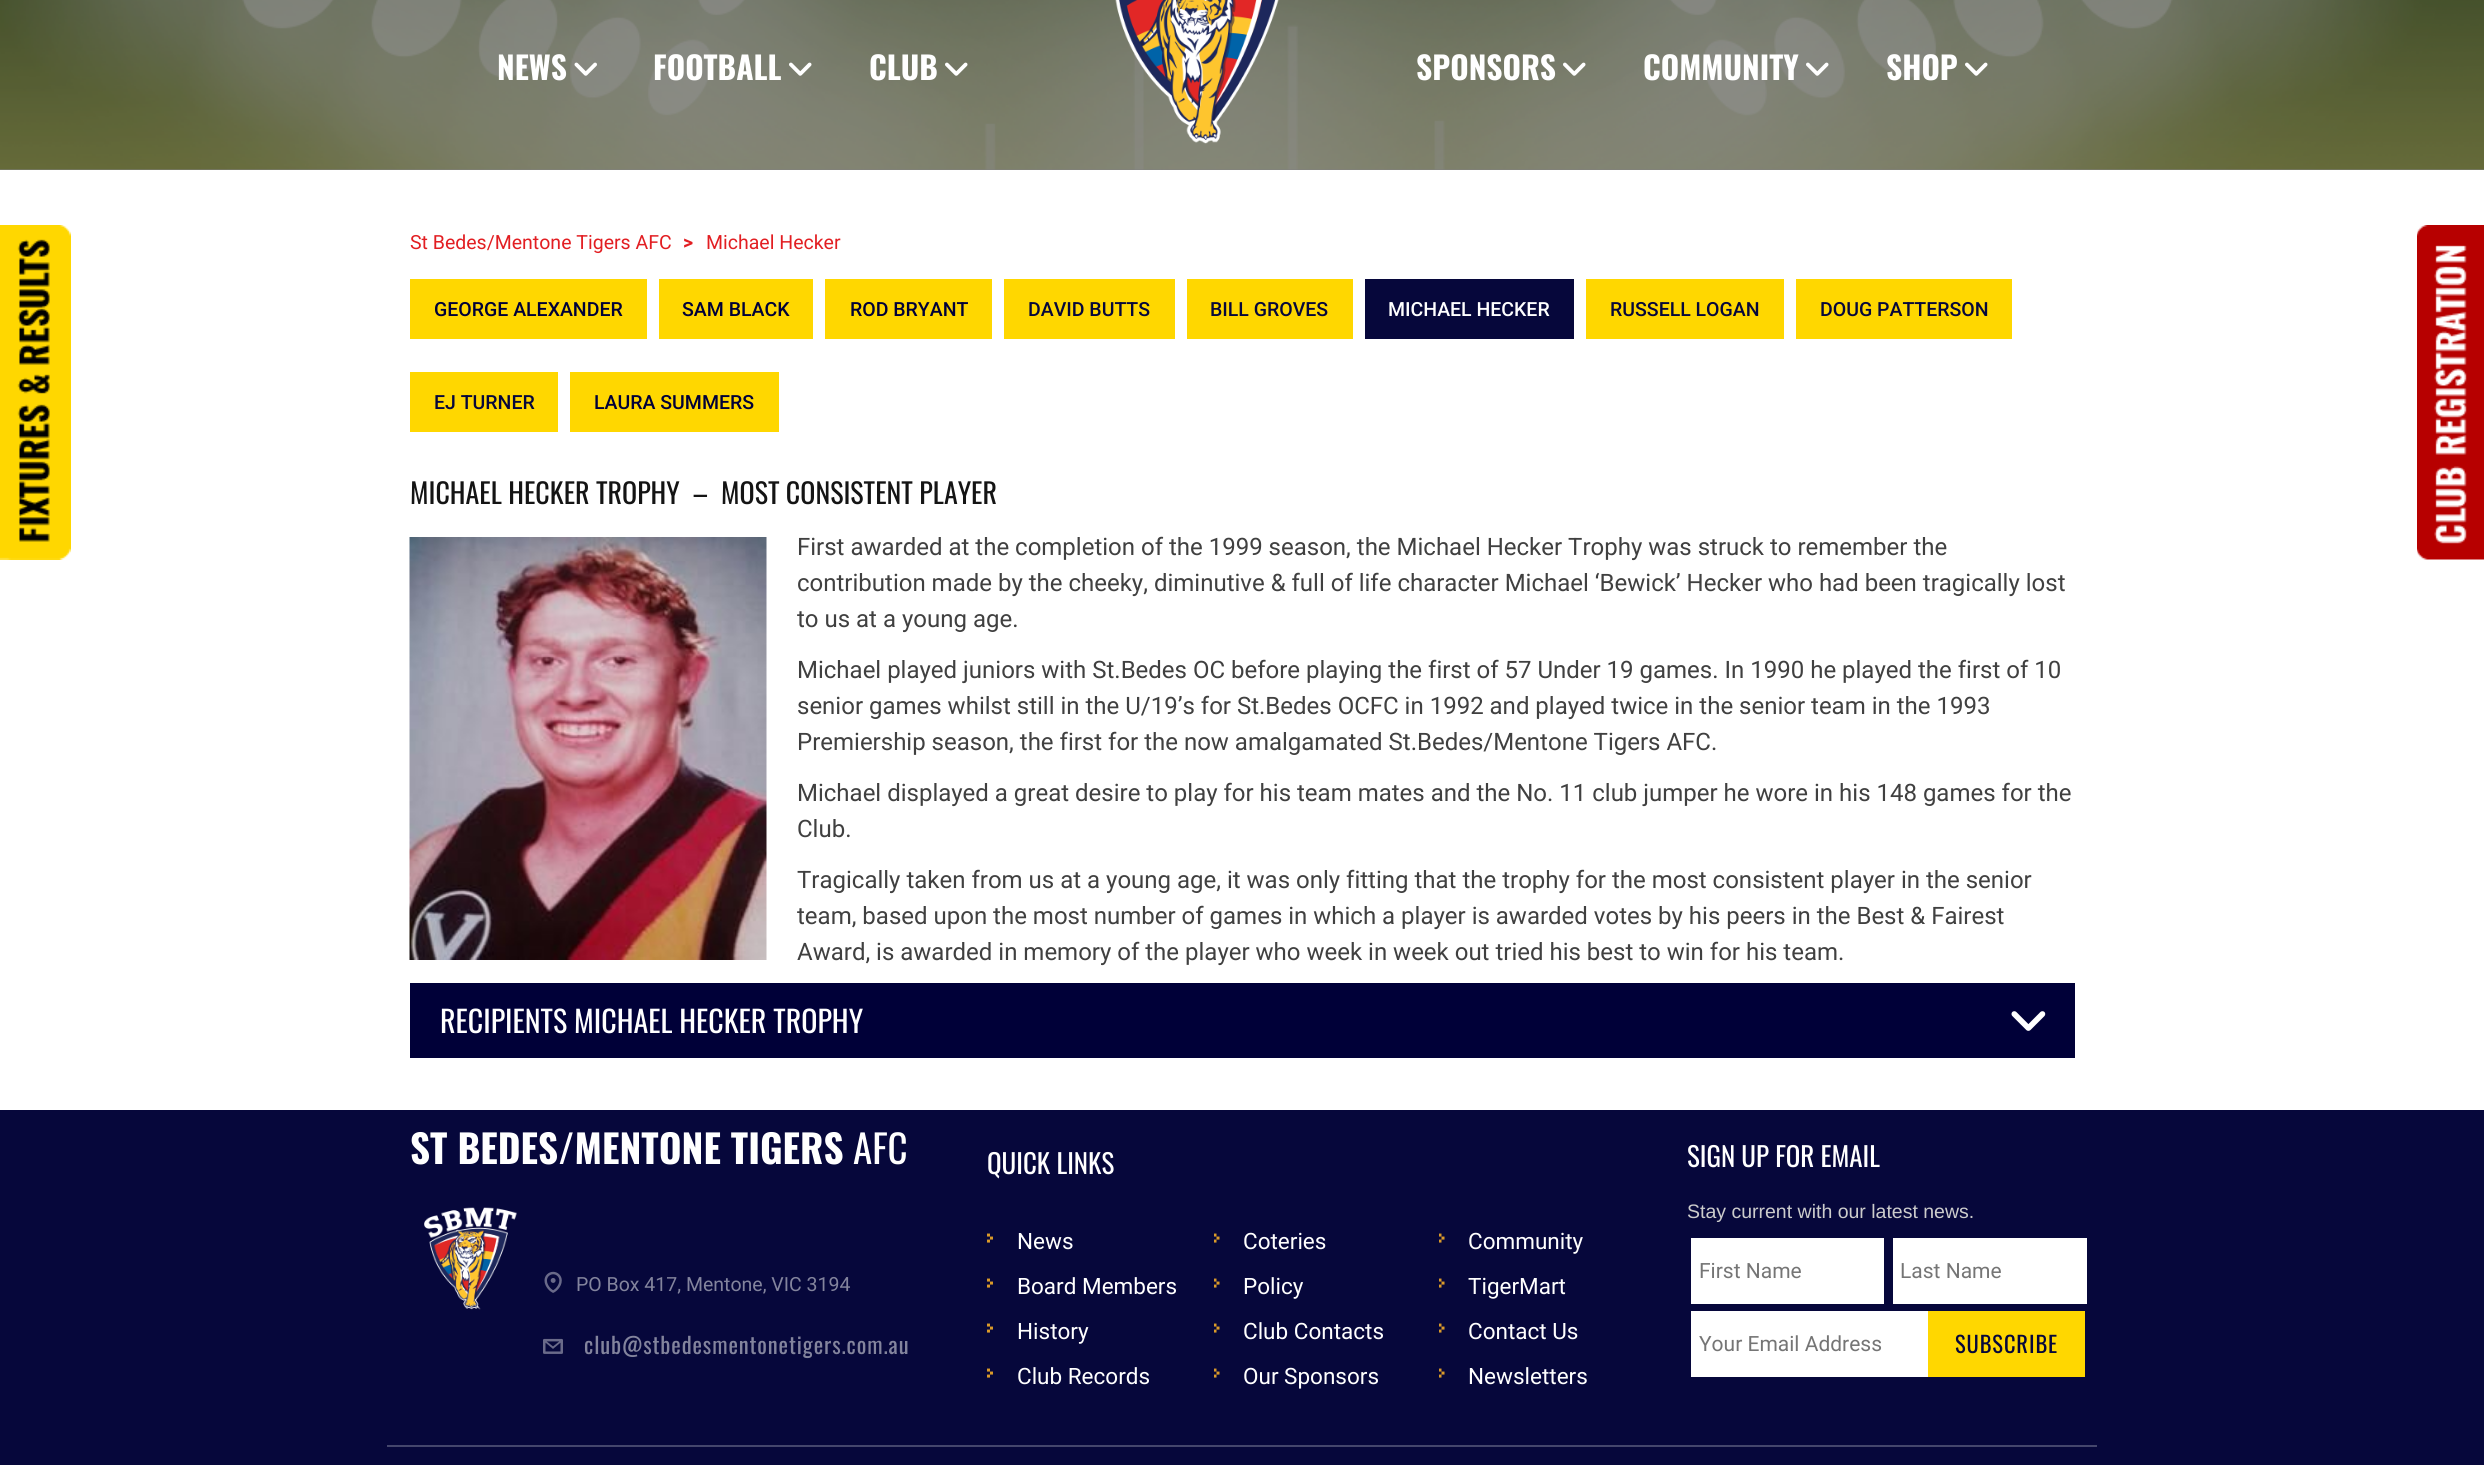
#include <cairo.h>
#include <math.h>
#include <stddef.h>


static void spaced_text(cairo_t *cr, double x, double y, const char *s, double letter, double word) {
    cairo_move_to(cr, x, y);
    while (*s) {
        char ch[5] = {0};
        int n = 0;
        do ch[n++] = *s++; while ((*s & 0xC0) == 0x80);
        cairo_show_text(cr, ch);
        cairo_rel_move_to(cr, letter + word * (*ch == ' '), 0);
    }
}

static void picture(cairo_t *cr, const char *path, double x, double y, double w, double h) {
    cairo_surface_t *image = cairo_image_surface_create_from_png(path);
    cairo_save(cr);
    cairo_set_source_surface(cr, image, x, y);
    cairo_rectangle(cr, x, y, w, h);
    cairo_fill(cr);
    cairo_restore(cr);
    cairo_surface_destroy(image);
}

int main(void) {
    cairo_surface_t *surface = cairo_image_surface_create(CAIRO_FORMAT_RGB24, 2484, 1465);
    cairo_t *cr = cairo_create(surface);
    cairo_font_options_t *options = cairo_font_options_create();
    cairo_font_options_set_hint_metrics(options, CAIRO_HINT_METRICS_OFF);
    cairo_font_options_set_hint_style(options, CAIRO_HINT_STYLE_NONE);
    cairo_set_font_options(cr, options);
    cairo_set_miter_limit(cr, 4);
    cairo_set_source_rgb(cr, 1, 1, 1);
    cairo_paint(cr);
    cairo_set_source_rgb(cr, 0.502, 0.502, 0.502);
    cairo_rectangle(cr, 0, 0, 2484, 170);
    cairo_fill(cr);
    picture(cr, "img1.png", 0, 0, 2484, 170);
    cairo_select_font_face(cr, "Oswald", CAIRO_FONT_SLANT_NORMAL, CAIRO_FONT_WEIGHT_BOLD);
    cairo_set_font_size(cr, 31.5);
    cairo_set_source_rgb(cr, 1, 1, 1);
    cairo_move_to(cr, 497, 80);
    cairo_show_text(cr, "NEWS");
    picture(cr, "img2.png", 574, 62, 23, 14);
    cairo_move_to(cr, 653, 80);
    cairo_show_text(cr, "FOOTBALL");
    picture(cr, "img3.png", 789, 62, 23, 14);
    cairo_move_to(cr, 869, 80);
    cairo_show_text(cr, "CLUB");
    picture(cr, "img4.png", 945, 62, 23, 14);
    picture(cr, "img5.png", 1115, 0, 164, 144);
    cairo_move_to(cr, 1416, 80);
    cairo_show_text(cr, "SPONSORS");
    picture(cr, "img6.png", 1563, 62, 23, 14);
    cairo_move_to(cr, 1643, 80);
    cairo_show_text(cr, "COMMUNITY");
    picture(cr, "img7.png", 1806, 62, 23, 14);
    cairo_move_to(cr, 1886, 80);
    cairo_show_text(cr, "SHOP");
    picture(cr, "img8.png", 1965, 62, 23, 14);
    picture(cr, "img9.png", 0, 225, 71, 335);
    picture(cr, "img10.png", 2417, 225, 67, 335);
    cairo_select_font_face(cr, "Roboto", CAIRO_FONT_SLANT_NORMAL, CAIRO_FONT_WEIGHT_NORMAL);
    cairo_set_font_size(cr, 19.5);
    cairo_set_source_rgb(cr, 0.886, 0.118, 0.133);
    cairo_move_to(cr, 410, 249);
    cairo_show_text(cr, "St Bedes/Mentone Tigers AFC");
    cairo_select_font_face(cr, "Roboto", CAIRO_FONT_SLANT_NORMAL, CAIRO_FONT_WEIGHT_BOLD);
    spaced_text(cr, 683, 249, ">", 1, 0);
    cairo_select_font_face(cr, "Roboto", CAIRO_FONT_SLANT_NORMAL, CAIRO_FONT_WEIGHT_NORMAL);
    cairo_move_to(cr, 706, 249);
    cairo_show_text(cr, "Michael Hecker");
    cairo_set_source_rgb(cr, 1, 0.843, 0);
    cairo_rectangle(cr, 410, 279, 237, 60);
    cairo_fill(cr);
    cairo_select_font_face(cr, "Roboto Medium", CAIRO_FONT_SLANT_NORMAL, CAIRO_FONT_WEIGHT_NORMAL);
    cairo_set_source_rgb(cr, 0, 0, 0.22);
    cairo_move_to(cr, 434, 316);
    cairo_show_text(cr, "GEORGE ALEXANDER");
    cairo_set_source_rgb(cr, 1, 0.843, 0);
    cairo_rectangle(cr, 659, 279, 154, 60);
    cairo_fill(cr);
    cairo_set_source_rgb(cr, 0, 0, 0.22);
    cairo_move_to(cr, 682, 316);
    cairo_show_text(cr, "SAM BLACK");
    cairo_set_source_rgb(cr, 1, 0.843, 0);
    cairo_rectangle(cr, 825, 279, 167, 60);
    cairo_fill(cr);
    cairo_set_source_rgb(cr, 0, 0, 0.22);
    cairo_move_to(cr, 850, 316);
    cairo_show_text(cr, "ROD BRYANT");
    cairo_set_source_rgb(cr, 1, 0.843, 0);
    cairo_rectangle(cr, 1004, 279, 171, 60);
    cairo_fill(cr);
    cairo_set_source_rgb(cr, 0.024, 0.031, 0.231);
    cairo_move_to(cr, 1028, 316);
    cairo_show_text(cr, "DAVID BUTTS");
    cairo_set_source_rgb(cr, 1, 0.843, 0);
    cairo_rectangle(cr, 1187, 279, 166, 60);
    cairo_fill(cr);
    cairo_set_source_rgb(cr, 0.024, 0.031, 0.231);
    cairo_move_to(cr, 1210, 316);
    cairo_show_text(cr, "BILL GROVES");
    cairo_rectangle(cr, 1365, 279, 209, 60);
    cairo_fill(cr);
    cairo_set_source_rgb(cr, 1, 1, 1);
    cairo_move_to(cr, 1388, 316);
    cairo_show_text(cr, "MICHAEL HECKER");
    cairo_set_source_rgb(cr, 1, 0.843, 0);
    cairo_rectangle(cr, 1586, 279, 198, 60);
    cairo_fill(cr);
    cairo_set_source_rgb(cr, 0.024, 0.031, 0.231);
    cairo_move_to(cr, 1610, 316);
    cairo_show_text(cr, "RUSSELL LOGAN");
    cairo_set_source_rgb(cr, 1, 0.843, 0);
    cairo_rectangle(cr, 1796, 279, 216, 60);
    cairo_fill(cr);
    cairo_set_source_rgb(cr, 0.024, 0.031, 0.231);
    cairo_move_to(cr, 1820, 316);
    cairo_show_text(cr, "DOUG PATTERSON");
    cairo_set_source_rgb(cr, 1, 0.843, 0);
    cairo_rectangle(cr, 410, 372, 148, 60);
    cairo_fill(cr);
    cairo_set_source_rgb(cr, 0.024, 0.031, 0.231);
    cairo_move_to(cr, 434, 409);
    cairo_show_text(cr, "EJ TURNER");
    cairo_set_source_rgb(cr, 1, 0.843, 0);
    cairo_rectangle(cr, 570, 372, 209, 60);
    cairo_fill(cr);
    cairo_set_source_rgb(cr, 0, 0, 0.22);
    cairo_move_to(cr, 594, 409);
    cairo_show_text(cr, "LAURA SUMMERS");
    cairo_select_font_face(cr, "Oswald", CAIRO_FONT_SLANT_NORMAL, CAIRO_FONT_WEIGHT_NORMAL);
    cairo_set_font_size(cr, 28);
    cairo_set_source_rgb(cr, 0.082, 0.082, 0.082);
    cairo_move_to(cr, 410, 504);
    cairo_show_text(cr, "MICHAEL HECKER TROPHY  –  MOST CONSISTENT PLAYER");
    picture(cr, "img11.png", 409, 537, 358, 423);
    cairo_select_font_face(cr, "Roboto", CAIRO_FONT_SLANT_NORMAL, CAIRO_FONT_WEIGHT_NORMAL);
    cairo_set_font_size(cr, 24);
    cairo_set_source_rgb(cr, 0.251, 0.251, 0.251);
    cairo_move_to(cr, 797, 555);
    cairo_show_text(cr, "First awarded at the completion of the 1999 season, the Michael Hecker Trophy was struck to remember the");
    cairo_move_to(cr, 797, 591);
    cairo_show_text(cr, "contribution made by the cheeky, diminutive & full of life character Michael ‘Bewick’ Hecker who had been tragically lost");
    cairo_move_to(cr, 797, 627);
    cairo_show_text(cr, "to us at a young age.");
    cairo_move_to(cr, 797, 678);
    cairo_show_text(cr, "Michael played juniors with St.Bedes OC before playing the first of 57 Under 19 games. In 1990 he played the first of 10");
    cairo_move_to(cr, 797, 714);
    cairo_show_text(cr, "senior games whilst still in the U/19’s for St.Bedes OCFC in 1992 and played twice in the senior team in the 1993");
    cairo_move_to(cr, 797, 750);
    cairo_show_text(cr, "Premiership season, the first for the now amalgamated St.Bedes/Mentone Tigers AFC.");
    cairo_move_to(cr, 797, 801);
    cairo_show_text(cr, "Michael displayed a great desire to play for his team mates and the No. 11 club jumper he wore in his 148 games for the");
    cairo_move_to(cr, 797, 837);
    cairo_show_text(cr, "Club.");
    cairo_move_to(cr, 797, 888);
    cairo_show_text(cr, "Tragically taken from us at a young age, it was only fitting that the trophy for the most consistent player in the senior");
    cairo_move_to(cr, 797, 924);
    cairo_show_text(cr, "team, based upon the most number of games in which a player is awarded votes by his peers in the Best & Fairest");
    cairo_move_to(cr, 797, 960);
    cairo_show_text(cr, "Award, is awarded in memory of the player who week in week out tried his best to win for his team.");
    cairo_set_source_rgb(cr, 0, 0, 0.22);
    cairo_rectangle(cr, 410, 983, 1665, 75);
    cairo_fill(cr);
    cairo_select_font_face(cr, "Oswald", CAIRO_FONT_SLANT_NORMAL, CAIRO_FONT_WEIGHT_NORMAL);
    cairo_set_font_size(cr, 30);
    cairo_set_source_rgb(cr, 1, 1, 1);
    cairo_move_to(cr, 440, 1033);
    cairo_show_text(cr, "RECIPIENTS MICHAEL HECKER TROPHY");
    picture(cr, "img12.png", 2011, 1011, 35, 20);
    cairo_set_source_rgb(cr, 0.024, 0.031, 0.231);
    cairo_rectangle(cr, 0, 1110, 2484, 355);
    cairo_fill(cr);
    cairo_set_source_rgb(cr, 0.267, 0.275, 0.424);
    cairo_rectangle(cr, 387, 1445, 1710, 2);
    cairo_fill(cr);
    cairo_select_font_face(cr, "Oswald", CAIRO_FONT_SLANT_NORMAL, CAIRO_FONT_WEIGHT_BOLD);
    cairo_set_font_size(cr, 39);
    cairo_set_source_rgb(cr, 1, 1, 1);
    cairo_move_to(cr, 410, 1164);
    cairo_show_text(cr, "ST BEDES/MENTONE TIGERS");
    cairo_select_font_face(cr, "Oswald", CAIRO_FONT_SLANT_NORMAL, CAIRO_FONT_WEIGHT_NORMAL);
    cairo_move_to(cr, 853, 1164);
    cairo_show_text(cr, "AFC");
    picture(cr, "img13.png", 424, 1207, 93, 103);
    picture(cr, "img14.png", 544, 1271, 18, 22);
    cairo_select_font_face(cr, "Roboto", CAIRO_FONT_SLANT_NORMAL, CAIRO_FONT_WEIGHT_NORMAL);
    cairo_set_font_size(cr, 19.5);
    cairo_set_source_rgb(cr, 0.514, 0.518, 0.616);
    cairo_move_to(cr, 576, 1291);
    cairo_show_text(cr, "PO Box 417, Mentone, VIC 3194");
    picture(cr, "img15.png", 543, 1338, 20, 16);
    cairo_select_font_face(cr, "Oswald", CAIRO_FONT_SLANT_NORMAL, CAIRO_FONT_WEIGHT_NORMAL);
    cairo_set_font_size(cr, 22.5);
    spaced_text(cr, 584, 1354, "club@stbedesmentonetigers.com.au", 0.9, 0);
    cairo_set_font_size(cr, 27);
    cairo_set_source_rgb(cr, 1, 1, 1);
    cairo_move_to(cr, 987, 1174);
    cairo_show_text(cr, "QUICK LINKS");
    picture(cr, "img16.png", 987, 1233, 6, 10);
    cairo_select_font_face(cr, "Roboto", CAIRO_FONT_SLANT_NORMAL, CAIRO_FONT_WEIGHT_NORMAL);
    cairo_set_font_size(cr, 22.5);
    cairo_move_to(cr, 1017, 1249);
    cairo_show_text(cr, "News");
    picture(cr, "img17.png", 1214, 1233, 6, 10);
    cairo_move_to(cr, 1243, 1249);
    cairo_show_text(cr, "Coteries");
    picture(cr, "img17.png", 1439, 1233, 6, 10);
    cairo_move_to(cr, 1468, 1249);
    cairo_show_text(cr, "Community");
    picture(cr, "img16.png", 987, 1278, 6, 10);
    cairo_move_to(cr, 1017, 1294);
    cairo_show_text(cr, "Board Members");
    picture(cr, "img17.png", 1214, 1278, 6, 10);
    cairo_move_to(cr, 1243, 1294);
    cairo_show_text(cr, "Policy");
    picture(cr, "img17.png", 1439, 1278, 6, 10);
    cairo_move_to(cr, 1468, 1294);
    cairo_show_text(cr, "TigerMart");
    picture(cr, "img16.png", 987, 1323, 6, 10);
    cairo_move_to(cr, 1017, 1339);
    cairo_show_text(cr, "History");
    picture(cr, "img17.png", 1214, 1323, 6, 10);
    cairo_move_to(cr, 1243, 1339);
    cairo_show_text(cr, "Club Contacts");
    picture(cr, "img17.png", 1439, 1323, 6, 10);
    cairo_move_to(cr, 1468, 1339);
    cairo_show_text(cr, "Contact Us");
    picture(cr, "img16.png", 987, 1368, 6, 10);
    cairo_move_to(cr, 1017, 1384);
    cairo_show_text(cr, "Club Records");
    picture(cr, "img17.png", 1214, 1368, 6, 10);
    cairo_move_to(cr, 1243, 1384);
    cairo_show_text(cr, "Our Sponsors");
    picture(cr, "img17.png", 1439, 1368, 6, 10);
    cairo_move_to(cr, 1468, 1384);
    cairo_show_text(cr, "Newsletters");
    cairo_select_font_face(cr, "Oswald", CAIRO_FONT_SLANT_NORMAL, CAIRO_FONT_WEIGHT_NORMAL);
    cairo_set_font_size(cr, 27);
    cairo_move_to(cr, 1687, 1167);
    cairo_show_text(cr, "SIGN UP FOR EMAIL");
    cairo_select_font_face(cr, "Liberation Sans", CAIRO_FONT_SLANT_NORMAL, CAIRO_FONT_WEIGHT_NORMAL);
    cairo_set_font_size(cr, 19.5);
    cairo_set_source_rgb(cr, 0.8, 0.8, 0.8);
    cairo_move_to(cr, 1687, 1218);
    cairo_show_text(cr, "Stay current with our latest news.");
    cairo_set_source_rgb(cr, 1, 1, 1);
    cairo_rectangle(cr, 1691, 1238, 193, 66);
    cairo_fill(cr);
    cairo_select_font_face(cr, "Roboto", CAIRO_FONT_SLANT_NORMAL, CAIRO_FONT_WEIGHT_NORMAL);
    cairo_set_font_size(cr, 21);
    cairo_set_source_rgb(cr, 0.459, 0.459, 0.459);
    cairo_move_to(cr, 1699, 1278);
    cairo_show_text(cr, "First Name");
    cairo_set_source_rgb(cr, 1, 1, 1);
    cairo_rectangle(cr, 1893, 1238, 194, 66);
    cairo_fill(cr);
    cairo_set_source_rgb(cr, 0.459, 0.459, 0.459);
    cairo_move_to(cr, 1900, 1278);
    cairo_show_text(cr, "Last Name");
    cairo_set_source_rgb(cr, 1, 1, 1);
    cairo_rectangle(cr, 1691, 1311, 237, 66);
    cairo_fill(cr);
    cairo_set_source_rgb(cr, 0.459, 0.459, 0.459);
    cairo_move_to(cr, 1699, 1351);
    cairo_show_text(cr, "Your Email Address");
    cairo_set_source_rgb(cr, 1, 0.843, 0);
    cairo_rectangle(cr, 1928, 1311, 157, 66);
    cairo_fill(cr);
    cairo_select_font_face(cr, "Oswald", CAIRO_FONT_SLANT_NORMAL, CAIRO_FONT_WEIGHT_NORMAL);
    cairo_set_font_size(cr, 22.5);
    cairo_set_source_rgb(cr, 0.024, 0.031, 0.231);
    spaced_text(cr, 1955, 1353, "SUBSCRIBE", 0.9, 0);
    cairo_surface_write_to_png(surface, "page.png");
    cairo_font_options_destroy(options);
    cairo_destroy(cr);
    cairo_surface_destroy(surface);
    return 0;
}
